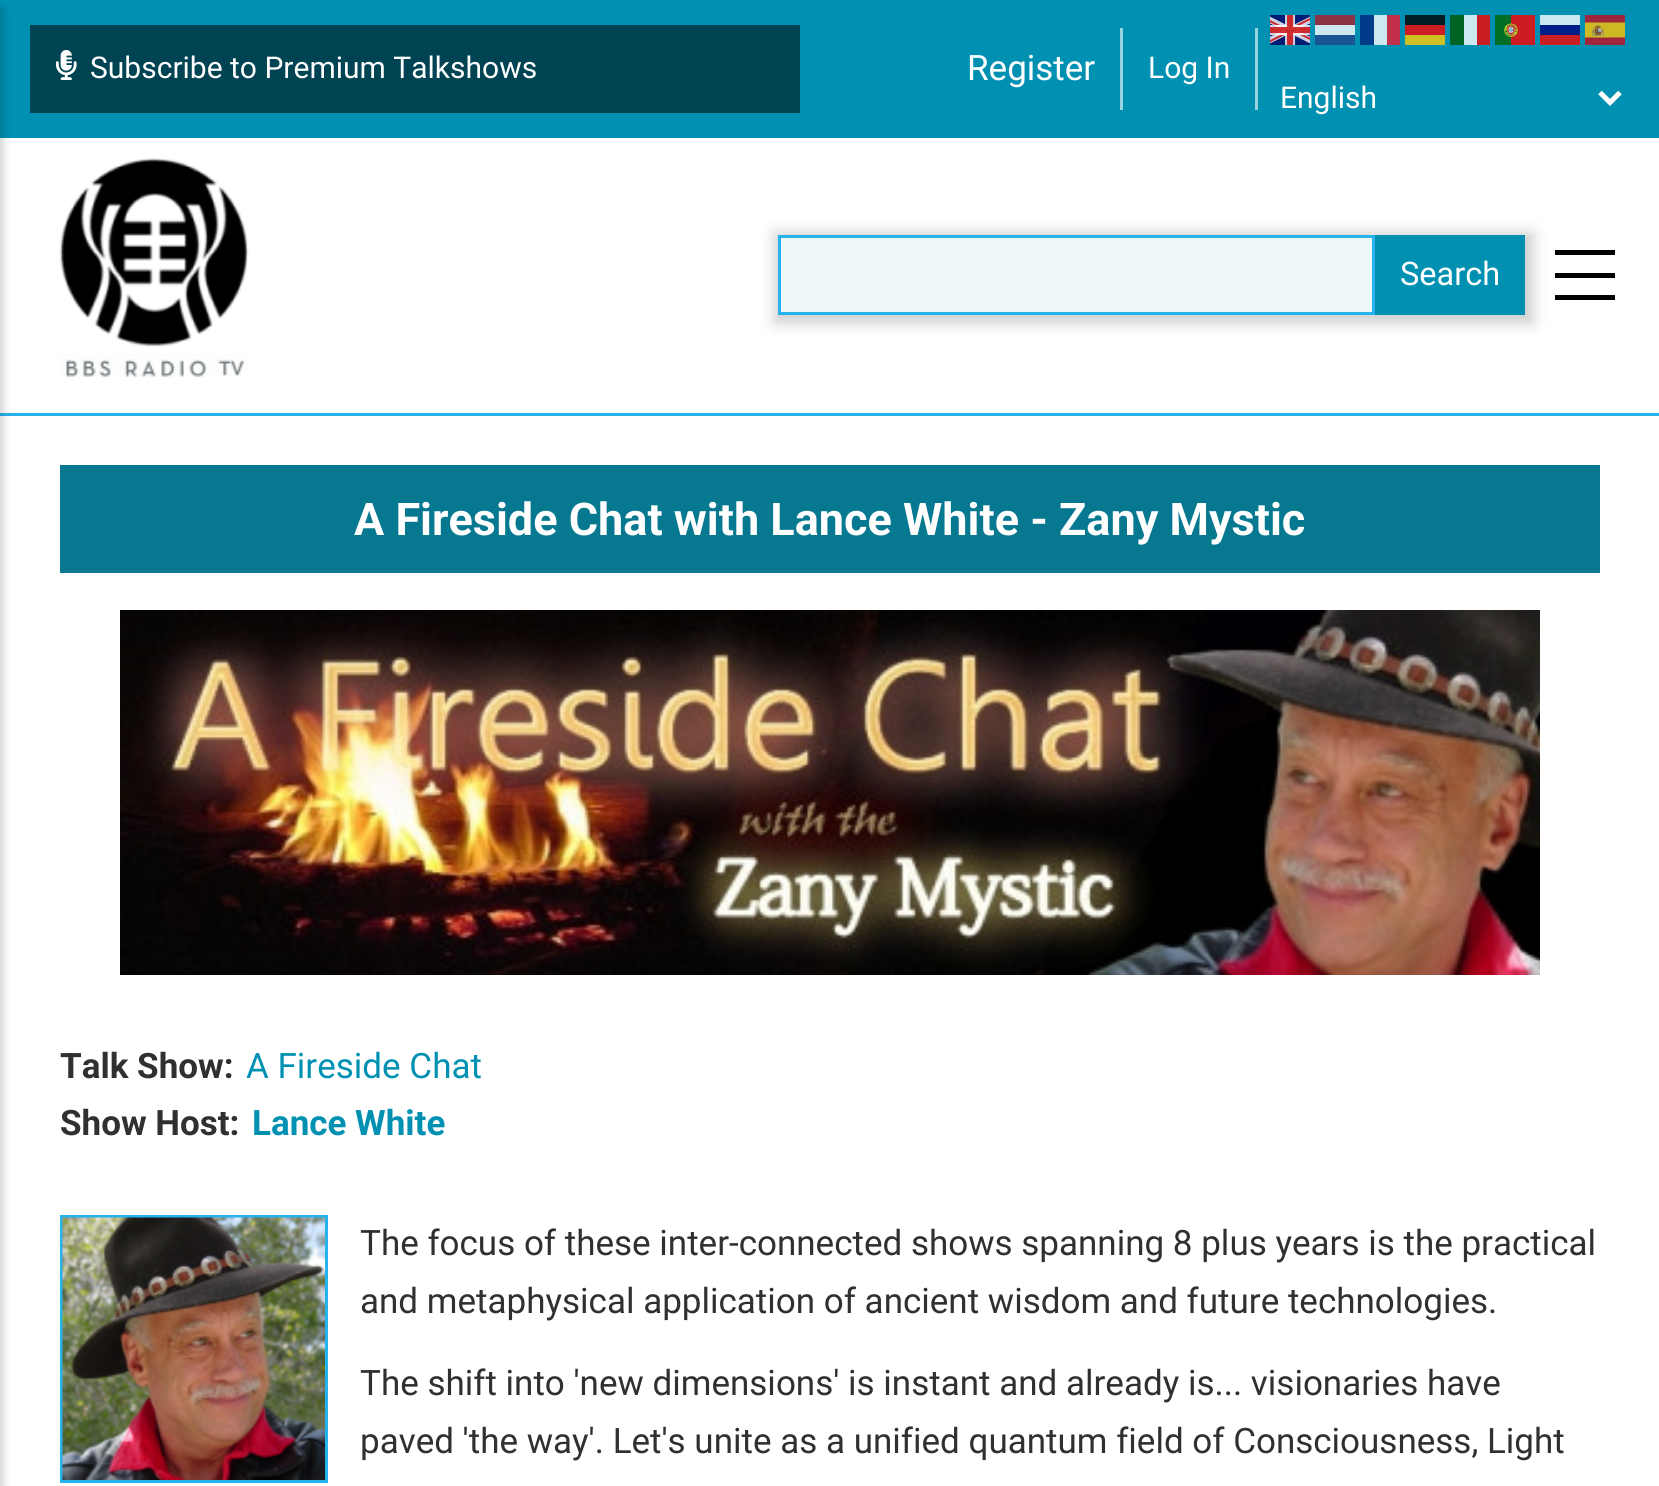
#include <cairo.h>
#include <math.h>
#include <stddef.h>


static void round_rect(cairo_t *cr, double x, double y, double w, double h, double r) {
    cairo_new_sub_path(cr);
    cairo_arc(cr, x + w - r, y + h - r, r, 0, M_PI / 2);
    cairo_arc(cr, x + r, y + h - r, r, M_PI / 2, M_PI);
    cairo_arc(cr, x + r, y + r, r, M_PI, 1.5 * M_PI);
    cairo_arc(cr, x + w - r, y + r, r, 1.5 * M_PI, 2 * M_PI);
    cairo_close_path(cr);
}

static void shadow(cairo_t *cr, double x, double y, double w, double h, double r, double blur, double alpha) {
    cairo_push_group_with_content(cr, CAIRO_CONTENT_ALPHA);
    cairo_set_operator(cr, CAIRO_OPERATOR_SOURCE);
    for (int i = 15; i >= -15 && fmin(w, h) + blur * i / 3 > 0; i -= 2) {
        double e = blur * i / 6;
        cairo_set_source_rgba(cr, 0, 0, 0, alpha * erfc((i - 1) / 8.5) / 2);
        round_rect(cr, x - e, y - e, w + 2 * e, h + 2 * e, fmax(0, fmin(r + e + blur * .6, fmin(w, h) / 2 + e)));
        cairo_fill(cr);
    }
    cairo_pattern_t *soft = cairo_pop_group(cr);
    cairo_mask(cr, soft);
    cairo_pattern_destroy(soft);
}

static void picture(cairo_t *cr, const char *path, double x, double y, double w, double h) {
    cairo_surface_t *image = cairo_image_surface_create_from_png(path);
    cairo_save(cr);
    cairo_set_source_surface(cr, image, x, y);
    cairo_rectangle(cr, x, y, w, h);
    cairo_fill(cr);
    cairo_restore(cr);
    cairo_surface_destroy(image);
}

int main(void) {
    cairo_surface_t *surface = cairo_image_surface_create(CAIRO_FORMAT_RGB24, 1659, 1486);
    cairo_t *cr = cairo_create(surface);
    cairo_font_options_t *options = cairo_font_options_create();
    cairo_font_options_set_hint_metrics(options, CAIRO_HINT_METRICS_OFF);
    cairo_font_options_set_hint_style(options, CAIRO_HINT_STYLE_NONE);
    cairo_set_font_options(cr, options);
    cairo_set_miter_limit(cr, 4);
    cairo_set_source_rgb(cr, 1, 1, 1);
    cairo_paint(cr);
    cairo_set_source_rgb(cr, 0, 0.569, 0.698);
    cairo_rectangle(cr, 0, 0, 1659, 138);
    cairo_fill(cr);
    cairo_set_source_rgb(cr, 0.149, 0.698, 0.925);
    cairo_rectangle(cr, 0, 413, 1659, 3);
    cairo_fill(cr);
    cairo_set_source_rgb(cr, 0, 0, 0);
    shadow(cr, -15, 8, 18, 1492, 0, 5, 0.2);
    cairo_set_source_rgb(cr, 0, 0.267, 0.325);
    cairo_rectangle(cr, 30, 25, 770, 88);
    cairo_fill(cr);
    picture(cr, "img1.png", 55, 50, 22, 30);
    cairo_select_font_face(cr, "Roboto", CAIRO_FONT_SLANT_NORMAL, CAIRO_FONT_WEIGHT_NORMAL);
    cairo_set_font_size(cr, 30);
    cairo_set_source_rgb(cr, 1, 1, 1);
    cairo_move_to(cr, 90, 78);
    cairo_show_text(cr, "Subscribe to Premium Talkshows");
    cairo_set_source_rgb(cr, 0.6, 0.827, 0.878);
    cairo_rectangle(cr, 1120, 28, 3, 82);
    cairo_fill(cr);
    cairo_set_font_size(cr, 35);
    cairo_set_source_rgb(cr, 1, 1, 1);
    cairo_move_to(cr, 967, 80);
    cairo_show_text(cr, "Register");
    cairo_set_source_rgb(cr, 0.6, 0.827, 0.878);
    cairo_rectangle(cr, 1255, 28, 3, 82);
    cairo_fill(cr);
    cairo_set_font_size(cr, 30);
    cairo_set_source_rgb(cr, 1, 1, 1);
    cairo_move_to(cr, 1148, 78);
    cairo_show_text(cr, "Log In");
    picture(cr, "img2.png", 1270, 15, 40, 30);
    cairo_set_source_rgb(cr, 0.545, 0.2, 0.267);
    cairo_rectangle(cr, 1315, 15, 40, 10);
    cairo_fill(cr);
    cairo_set_source_rgb(cr, 0, 0.231, 0.537);
    cairo_rectangle(cr, 1360, 15, 14, 30);
    cairo_fill(cr);
    cairo_set_source_rgb(cr, 0.8, 0.914, 0.941);
    cairo_rectangle(cr, 1374, 15, 13, 30);
    cairo_fill(cr);
    cairo_set_source_rgb(cr, 0.761, 0.188, 0.29);
    cairo_rectangle(cr, 1387, 15, 13, 30);
    cairo_fill(cr);
    cairo_set_source_rgb(cr, 0, 0.114, 0.141);
    cairo_rectangle(cr, 1405, 15, 40, 10);
    cairo_fill(cr);
    cairo_set_source_rgb(cr, 0, 0.388, 0.141);
    cairo_rectangle(cr, 1450, 15, 14, 30);
    cairo_fill(cr);
    cairo_set_source_rgb(cr, 0.8, 0.914, 0.941);
    cairo_rectangle(cr, 1464, 15, 13, 30);
    cairo_fill(cr);
    cairo_set_source_rgb(cr, 0.792, 0.114, 0.141);
    cairo_rectangle(cr, 1477, 15, 13, 30);
    cairo_fill(cr);
    picture(cr, "img3.png", 1495, 15, 40, 30);
    cairo_set_source_rgb(cr, 0.8, 0.914, 0.941);
    cairo_rectangle(cr, 1540, 15, 40, 10);
    cairo_fill(cr);
    picture(cr, "img4.png", 1585, 15, 40, 30);
    cairo_rectangle(cr, 1315, 25, 40, 10);
    cairo_fill(cr);
    cairo_set_source_rgb(cr, 0.8, 0.114, 0.141);
    cairo_rectangle(cr, 1405, 25, 40, 10);
    cairo_fill(cr);
    cairo_set_source_rgb(cr, 0.004, 0.118, 0.533);
    cairo_rectangle(cr, 1540, 25, 40, 10);
    cairo_fill(cr);
    cairo_set_source_rgb(cr, 0.102, 0.333, 0.576);
    cairo_rectangle(cr, 1315, 35, 40, 10);
    cairo_fill(cr);
    cairo_set_source_rgb(cr, 0.8, 0.753, 0.141);
    cairo_rectangle(cr, 1405, 35, 40, 10);
    cairo_fill(cr);
    cairo_set_source_rgb(cr, 0.796, 0.118, 0.141);
    cairo_rectangle(cr, 1540, 35, 40, 10);
    cairo_fill(cr);
    cairo_new_path(cr);
    cairo_move_to(cr, 1600, 92.5);
    cairo_line_to(cr, 1610, 102.5);
    cairo_line_to(cr, 1620, 92.5);
    cairo_set_source_rgb(cr, 1, 1, 1);
    cairo_set_line_width(cr, 5);
    cairo_stroke(cr);
    cairo_move_to(cr, 1280, 108);
    cairo_show_text(cr, "English");
    picture(cr, "img5.png", 59, 158, 190, 219);
    cairo_set_source_rgb(cr, 0, 0, 0);
    cairo_rectangle(cr, 1555, 250, 60, 5);
    cairo_fill(cr);
    cairo_rectangle(cr, 1555, 273, 60, 5);
    cairo_fill(cr);
    cairo_rectangle(cr, 1555, 295, 60, 5);
    cairo_fill(cr);
    cairo_set_source_rgb(cr, 0, 0, 0);
    shadow(cr, 775, 233, 758, 90, 0, 7.5, 0.2);
    cairo_set_source_rgb(cr, 0.937, 0.969, 0.976);
    cairo_rectangle(cr, 779.5, 236.5, 594, 77);
    cairo_fill_preserve(cr);
    cairo_set_source_rgb(cr, 0.149, 0.698, 0.925);
    cairo_set_line_width(cr, 3);
    cairo_stroke(cr);
    cairo_set_source_rgb(cr, 0, 0.569, 0.698);
    cairo_rectangle(cr, 1375, 235, 150, 80);
    cairo_fill(cr);
    cairo_set_font_size(cr, 32.5);
    cairo_set_source_rgb(cr, 1, 1, 1);
    cairo_move_to(cr, 1400, 285);
    cairo_show_text(cr, "Search");
    cairo_set_source_rgb(cr, 0.024, 0.475, 0.569);
    cairo_rectangle(cr, 60, 465, 1540, 108);
    cairo_fill(cr);
    cairo_select_font_face(cr, "Roboto", CAIRO_FONT_SLANT_NORMAL, CAIRO_FONT_WEIGHT_BOLD);
    cairo_set_font_size(cr, 45);
    cairo_set_source_rgb(cr, 1, 1, 1);
    cairo_move_to(cr, 354, 535);
    cairo_show_text(cr, "A Fireside Chat with Lance White - Zany Mystic");
    picture(cr, "img6.png", 120, 610, 1420, 365);
    cairo_set_font_size(cr, 35);
    cairo_set_source_rgb(cr, 0.188, 0.188, 0.188);
    cairo_move_to(cr, 60, 1078);
    cairo_show_text(cr, "Talk Show:");
    cairo_select_font_face(cr, "Roboto", CAIRO_FONT_SLANT_NORMAL, CAIRO_FONT_WEIGHT_NORMAL);
    cairo_set_source_rgb(cr, 0, 0.569, 0.698);
    cairo_move_to(cr, 246, 1078);
    cairo_show_text(cr, "A Fireside Chat");
    cairo_select_font_face(cr, "Roboto", CAIRO_FONT_SLANT_NORMAL, CAIRO_FONT_WEIGHT_BOLD);
    cairo_set_source_rgb(cr, 0.188, 0.188, 0.188);
    cairo_move_to(cr, 60, 1135);
    cairo_show_text(cr, "Show Host:");
    cairo_set_source_rgb(cr, 0, 0.569, 0.698);
    cairo_move_to(cr, 252, 1135);
    cairo_show_text(cr, "Lance White");
    cairo_rectangle(cr, 61.5, 1216.5, 265, 265);
    cairo_set_source_rgb(cr, 0.149, 0.698, 0.925);
    cairo_stroke(cr);
    picture(cr, "img7.png", 62, 1217, 263, 263);
    cairo_select_font_face(cr, "Roboto", CAIRO_FONT_SLANT_NORMAL, CAIRO_FONT_WEIGHT_NORMAL);
    cairo_set_source_rgb(cr, 0.188, 0.188, 0.188);
    cairo_move_to(cr, 360, 1255);
    cairo_show_text(cr, "The focus of these inter-connected shows spanning 8 plus years is the practical");
    cairo_move_to(cr, 360, 1313);
    cairo_show_text(cr, "and metaphysical application of ancient wisdom and future technologies.");
    cairo_move_to(cr, 360, 1395);
    cairo_show_text(cr, "The shift into 'new dimensions' is instant and already is... visionaries have");
    cairo_move_to(cr, 360, 1453);
    cairo_show_text(cr, "paved 'the way'. Let's unite as a unified quantum field of Consciousness, Light");
    cairo_surface_write_to_png(surface, "page.png");
    cairo_font_options_destroy(options);
    cairo_destroy(cr);
    cairo_surface_destroy(surface);
    return 0;
}
